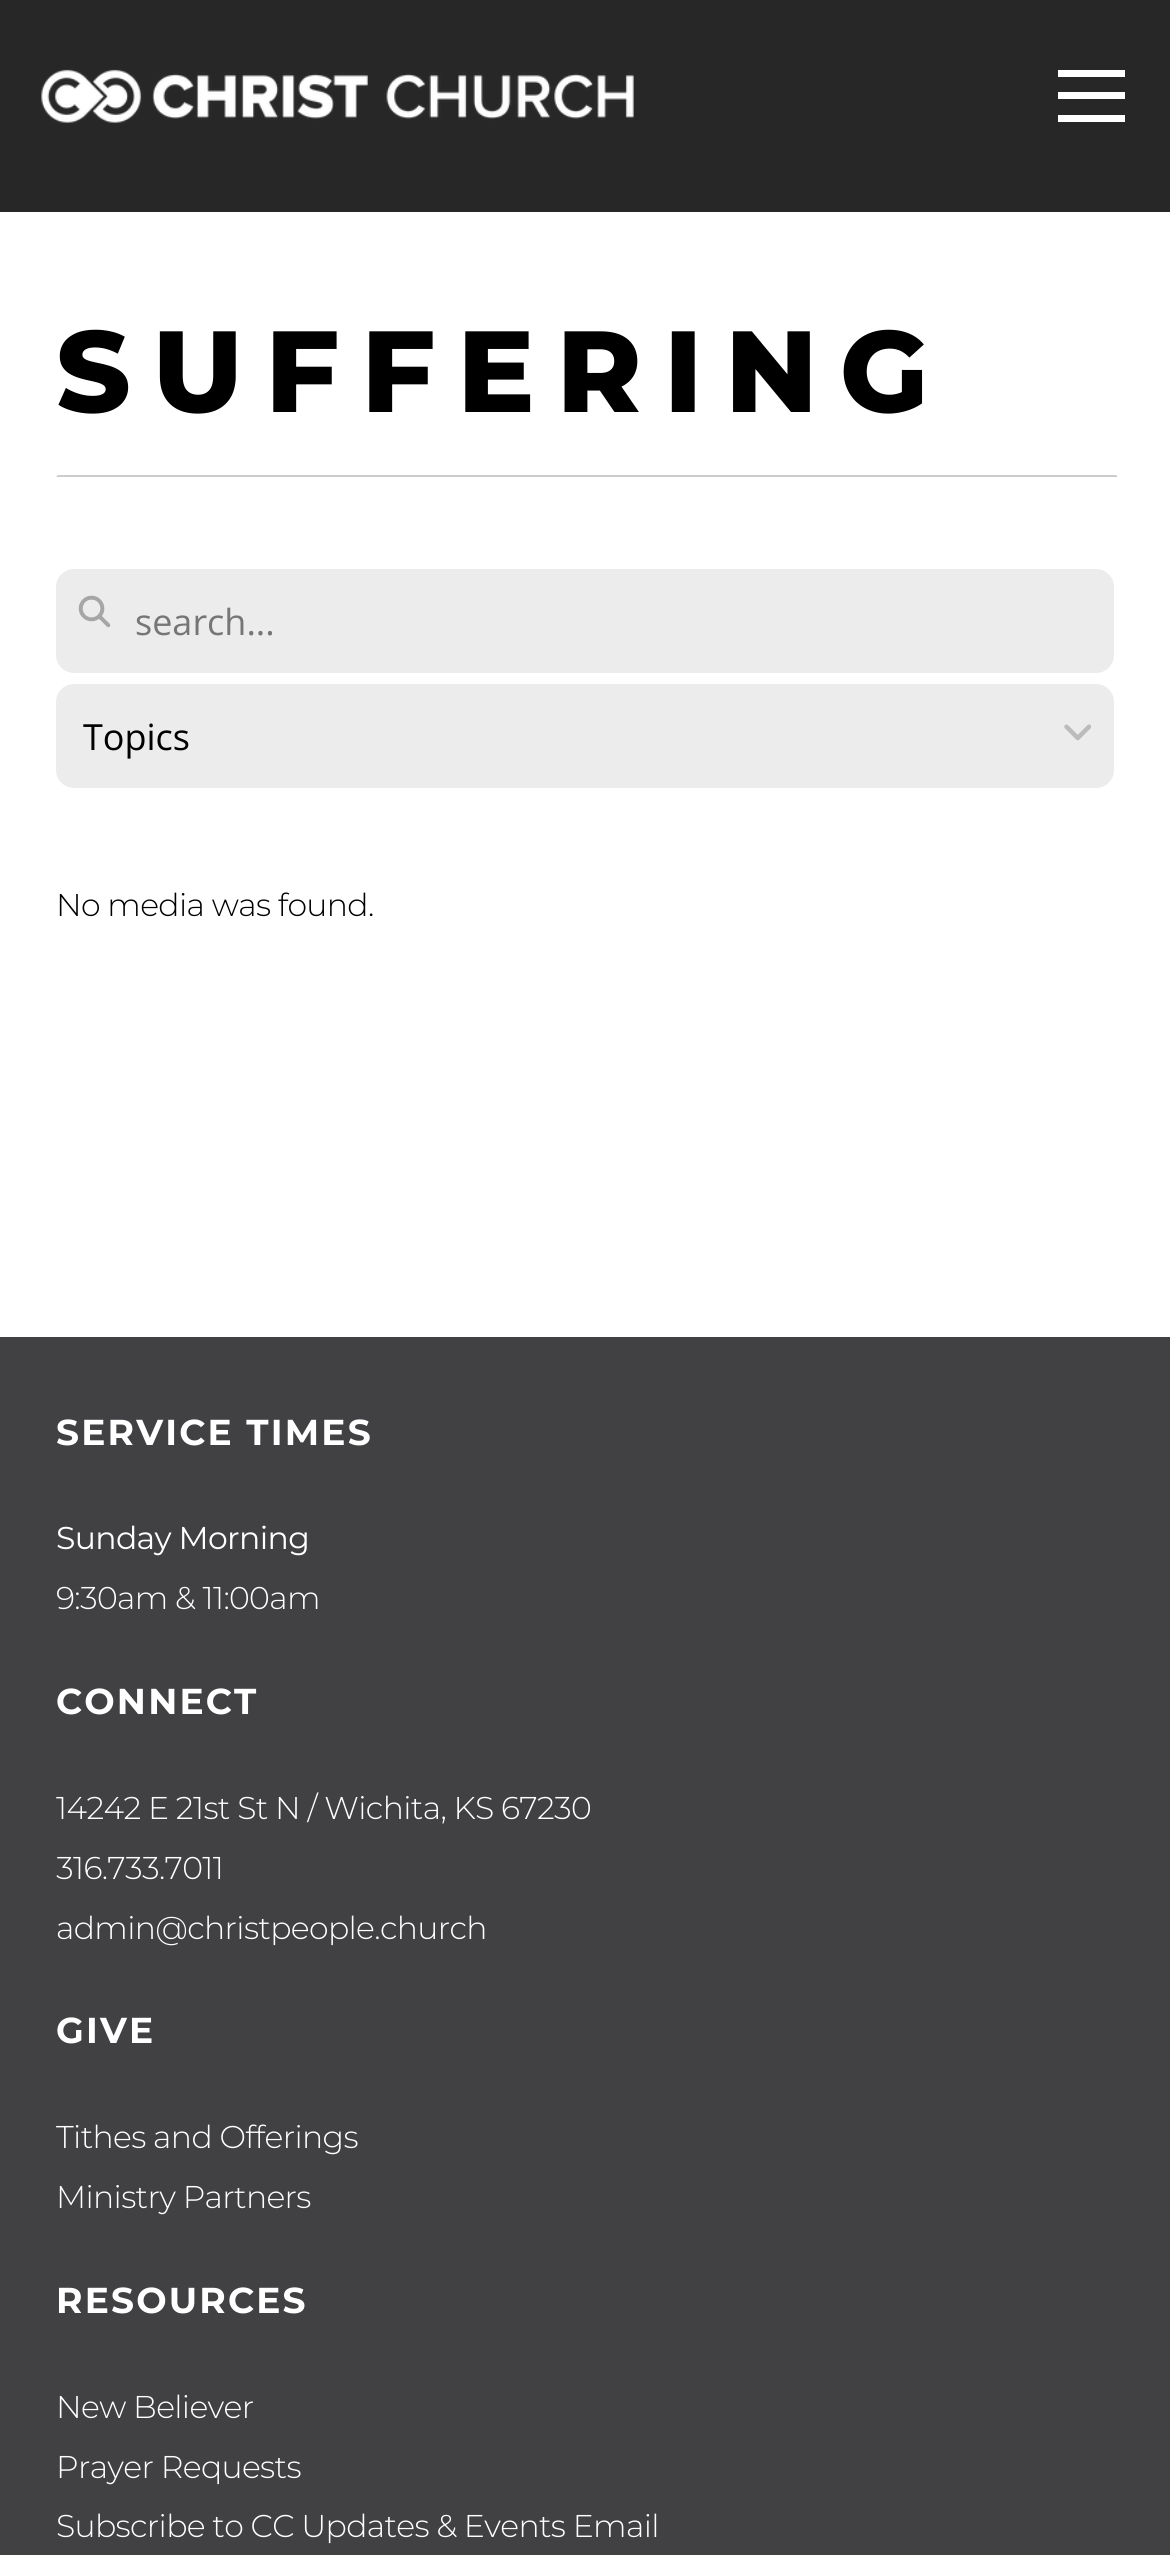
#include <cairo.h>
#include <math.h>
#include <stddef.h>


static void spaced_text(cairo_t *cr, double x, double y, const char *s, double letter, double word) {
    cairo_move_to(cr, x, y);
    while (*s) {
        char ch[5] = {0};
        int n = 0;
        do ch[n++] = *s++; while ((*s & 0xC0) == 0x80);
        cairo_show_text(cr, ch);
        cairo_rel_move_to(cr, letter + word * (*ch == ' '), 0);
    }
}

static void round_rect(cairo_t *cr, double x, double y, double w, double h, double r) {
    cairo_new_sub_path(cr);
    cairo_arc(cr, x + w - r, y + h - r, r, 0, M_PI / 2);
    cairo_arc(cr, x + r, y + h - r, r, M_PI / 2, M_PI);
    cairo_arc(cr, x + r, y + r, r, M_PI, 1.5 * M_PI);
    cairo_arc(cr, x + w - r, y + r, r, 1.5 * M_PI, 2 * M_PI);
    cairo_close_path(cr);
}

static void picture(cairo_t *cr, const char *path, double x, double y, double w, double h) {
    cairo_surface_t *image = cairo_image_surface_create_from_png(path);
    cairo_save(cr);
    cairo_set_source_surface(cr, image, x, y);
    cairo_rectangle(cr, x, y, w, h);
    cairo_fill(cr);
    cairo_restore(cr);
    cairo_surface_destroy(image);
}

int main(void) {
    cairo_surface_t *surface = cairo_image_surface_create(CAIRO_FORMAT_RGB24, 1170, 2555);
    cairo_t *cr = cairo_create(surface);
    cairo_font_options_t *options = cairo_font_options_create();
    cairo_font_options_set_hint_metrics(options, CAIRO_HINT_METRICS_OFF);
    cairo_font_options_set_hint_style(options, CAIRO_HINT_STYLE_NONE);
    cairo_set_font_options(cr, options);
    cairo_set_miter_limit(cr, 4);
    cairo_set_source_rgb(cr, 1, 1, 1);
    cairo_paint(cr);
    cairo_set_source_rgb(cr, 0.153, 0.153, 0.153);
    cairo_rectangle(cr, 0, 0, 1170, 212);
    cairo_fill(cr);
    picture(cr, "img1.png", 41, 69, 593, 55);
    cairo_set_source_rgb(cr, 1, 1, 1);
    cairo_rectangle(cr, 1058, 70, 67, 7);
    cairo_fill(cr);
    cairo_rectangle(cr, 1058, 92, 67, 7);
    cairo_fill(cr);
    cairo_rectangle(cr, 1058, 115, 67, 7);
    cairo_fill(cr);
    cairo_select_font_face(cr, "Montserrat ExtraBold", CAIRO_FONT_SLANT_NORMAL, CAIRO_FONT_WEIGHT_NORMAL);
    cairo_set_font_size(cr, 115.25);
    cairo_set_source_rgb(cr, 0, 0, 0);
    spaced_text(cr, 56, 412, "SUFFERING", 22, 0);
    cairo_set_source_rgb(cr, 0.8, 0.8, 0.8);
    cairo_new_path(cr);
    cairo_move_to(cr, 1118, 477);
    cairo_line_to(cr, 56, 477);
    cairo_line_to(cr, 58, 475);
    cairo_line_to(cr, 1116, 475);
    cairo_close_path(cr);
    cairo_fill(cr);
    cairo_set_source_rgb(cr, 0.922, 0.922, 0.922);
    round_rect(cr, 56, 569, 1058, 104, 18);
    cairo_fill(cr);
    picture(cr, "img2.png", 78, 595, 33, 33);
    cairo_select_font_face(cr, "Open Sans", CAIRO_FONT_SLANT_NORMAL, CAIRO_FONT_WEIGHT_NORMAL);
    cairo_set_font_size(cr, 36);
    cairo_set_source_rgb(cr, 0.463, 0.463, 0.463);
    cairo_move_to(cr, 135, 635);
    cairo_show_text(cr, "search...");
    cairo_set_source_rgb(cr, 0.922, 0.922, 0.922);
    round_rect(cr, 56, 684, 1058, 104, 18);
    cairo_fill(cr);
    picture(cr, "img3.png", 1064, 724, 27, 17);
    cairo_set_source_rgb(cr, 0, 0, 0);
    cairo_move_to(cr, 83, 750);
    cairo_show_text(cr, "Topics");
    cairo_select_font_face(cr, "Montserrat Light", CAIRO_FONT_SLANT_NORMAL, CAIRO_FONT_WEIGHT_NORMAL);
    cairo_set_font_size(cr, 31.5);
    spaced_text(cr, 56, 916, "No media was found.", -0.65, 0);
    cairo_set_source_rgb(cr, 0.255, 0.251, 0.259);
    cairo_rectangle(cr, 0, 1337, 1170, 1218);
    cairo_fill(cr);
    cairo_select_font_face(cr, "Montserrat", CAIRO_FONT_SLANT_NORMAL, CAIRO_FONT_WEIGHT_BOLD);
    cairo_set_font_size(cr, 36);
    cairo_set_source_rgb(cr, 1, 1, 1);
    spaced_text(cr, 56, 1445, "SERVICE TIMES", 2.2, 0);
    cairo_select_font_face(cr, "Montserrat", CAIRO_FONT_SLANT_NORMAL, CAIRO_FONT_WEIGHT_NORMAL);
    cairo_set_font_size(cr, 31.5);
    spaced_text(cr, 56, 1549, "Sunday Morning", -0.65, 0);
    cairo_select_font_face(cr, "Montserrat Light", CAIRO_FONT_SLANT_NORMAL, CAIRO_FONT_WEIGHT_NORMAL);
    spaced_text(cr, 56, 1609, "9:30am & 11:00am", -0.65, 0);
    cairo_select_font_face(cr, "Montserrat", CAIRO_FONT_SLANT_NORMAL, CAIRO_FONT_WEIGHT_BOLD);
    cairo_set_font_size(cr, 36);
    spaced_text(cr, 56, 1714, "CONNECT", 2.2, 0);
    cairo_select_font_face(cr, "Montserrat Light", CAIRO_FONT_SLANT_NORMAL, CAIRO_FONT_WEIGHT_NORMAL);
    cairo_set_font_size(cr, 31.5);
    spaced_text(cr, 56, 1819, "14242 E 21st St N / Wichita, KS 67230", -0.65, 0);
    spaced_text(cr, 56, 1879, "316.733.7011", -0.65, 0);
    spaced_text(cr, 56, 1939, "admin@christpeople.church", -0.65, 0);
    cairo_select_font_face(cr, "Montserrat", CAIRO_FONT_SLANT_NORMAL, CAIRO_FONT_WEIGHT_BOLD);
    cairo_set_font_size(cr, 36);
    spaced_text(cr, 56, 2043, "GIVE", 2.2, 0);
    cairo_select_font_face(cr, "Montserrat Light", CAIRO_FONT_SLANT_NORMAL, CAIRO_FONT_WEIGHT_NORMAL);
    cairo_set_font_size(cr, 31.5);
    spaced_text(cr, 56, 2148, "Tithes and Offerings", -0.65, 0);
    spaced_text(cr, 56, 2208, "Ministry Partners", -0.65, 0);
    cairo_select_font_face(cr, "Montserrat", CAIRO_FONT_SLANT_NORMAL, CAIRO_FONT_WEIGHT_BOLD);
    cairo_set_font_size(cr, 36);
    spaced_text(cr, 56, 2313, "RESOURCES", 2.2, 0);
    cairo_select_font_face(cr, "Montserrat Light", CAIRO_FONT_SLANT_NORMAL, CAIRO_FONT_WEIGHT_NORMAL);
    cairo_set_font_size(cr, 31.5);
    spaced_text(cr, 56, 2418, "New Believer", -0.65, 0);
    spaced_text(cr, 56, 2478, "Prayer Requests", -0.65, 0);
    spaced_text(cr, 56, 2537, "Subscribe to CC Updates & Events Email", -0.65, 0);
    cairo_surface_write_to_png(surface, "page.png");
    cairo_font_options_destroy(options);
    cairo_destroy(cr);
    cairo_surface_destroy(surface);
    return 0;
}
